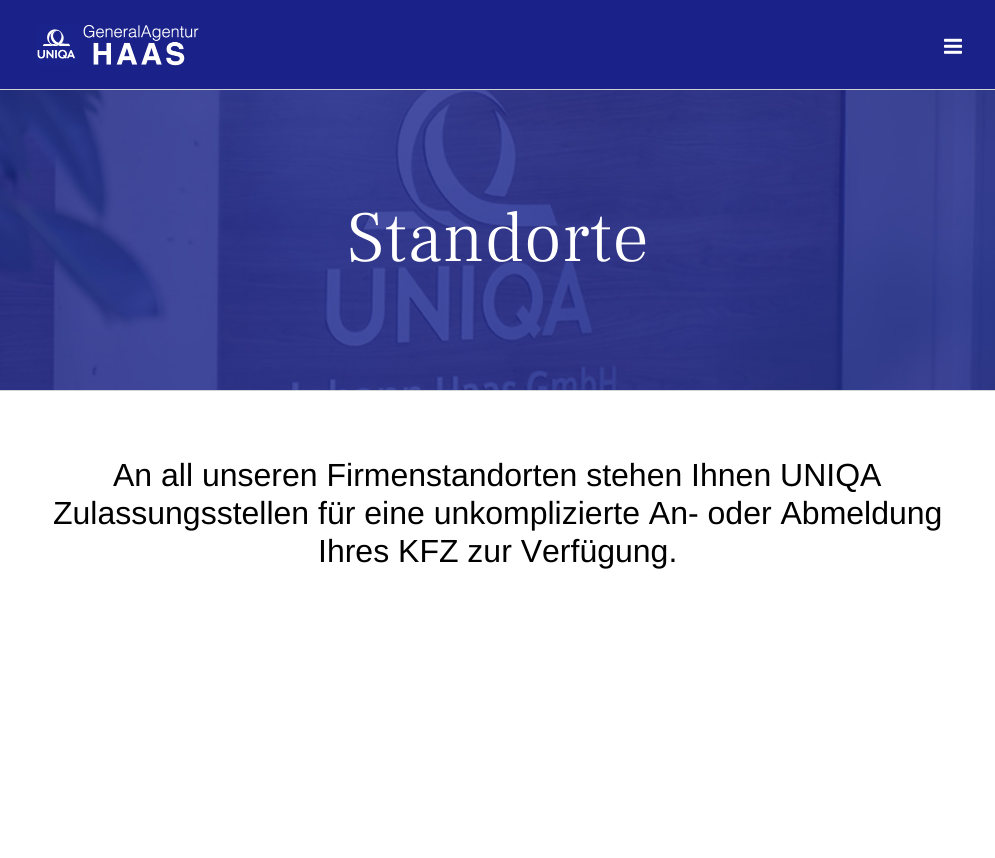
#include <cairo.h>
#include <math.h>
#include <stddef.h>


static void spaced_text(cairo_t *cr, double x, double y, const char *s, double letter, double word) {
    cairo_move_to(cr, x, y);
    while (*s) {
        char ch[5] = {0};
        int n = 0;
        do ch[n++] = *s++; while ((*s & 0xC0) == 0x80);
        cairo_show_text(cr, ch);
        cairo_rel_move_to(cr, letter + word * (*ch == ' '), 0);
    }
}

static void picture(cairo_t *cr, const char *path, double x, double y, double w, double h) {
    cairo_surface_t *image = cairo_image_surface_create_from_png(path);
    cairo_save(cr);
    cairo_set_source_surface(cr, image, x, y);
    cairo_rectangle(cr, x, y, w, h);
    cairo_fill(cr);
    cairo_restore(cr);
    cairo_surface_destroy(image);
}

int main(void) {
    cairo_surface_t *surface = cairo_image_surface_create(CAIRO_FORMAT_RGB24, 995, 858);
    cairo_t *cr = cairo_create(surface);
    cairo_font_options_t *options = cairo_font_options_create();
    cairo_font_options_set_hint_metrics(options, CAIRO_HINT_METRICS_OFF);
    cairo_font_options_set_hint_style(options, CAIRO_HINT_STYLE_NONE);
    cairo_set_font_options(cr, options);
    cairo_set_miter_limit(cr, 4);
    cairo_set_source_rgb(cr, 1, 1, 1);
    cairo_paint(cr);
    cairo_set_source_rgb(cr, 0.102, 0.133, 0.541);
    cairo_rectangle(cr, 0, 0, 995, 89);
    cairo_fill(cr);
    picture(cr, "img1.png", 37, 25, 162, 41);
    picture(cr, "img2.png", 944, 38, 18, 16);
    picture(cr, "img3.png", 0, 90, 995, 300);
    cairo_set_source_rgb(cr, 0.824, 0.827, 0.831);
    cairo_rectangle(cr, 0, 89, 995, 1);
    cairo_fill(cr);
    cairo_rectangle(cr, 0, 390, 995, 1);
    cairo_fill(cr);
    cairo_select_font_face(cr, "Frank Ruhl Libre Light", CAIRO_FONT_SLANT_NORMAL, CAIRO_FONT_WEIGHT_NORMAL);
    cairo_set_font_size(cr, 72);
    cairo_set_source_rgb(cr, 1, 1, 1);
    spaced_text(cr, 347, 261, "Standorte", 1, 0);
    cairo_select_font_face(cr, "Liberation Sans", CAIRO_FONT_SLANT_NORMAL, CAIRO_FONT_WEIGHT_NORMAL);
    cairo_set_font_size(cr, 32);
    cairo_set_source_rgb(cr, 0, 0, 0);
    cairo_move_to(cr, 113, 486);
    cairo_show_text(cr, "An all unseren Firmenstandorten stehen Ihnen UNIQA");
    cairo_move_to(cr, 53, 524);
    cairo_show_text(cr, "Zulassungsstellen für eine unkomplizierte An- oder Abmeldung");
    cairo_move_to(cr, 318, 562);
    cairo_show_text(cr, "Ihres KFZ zur Verfügung.");
    cairo_surface_write_to_png(surface, "page.png");
    cairo_font_options_destroy(options);
    cairo_destroy(cr);
    cairo_surface_destroy(surface);
    return 0;
}
